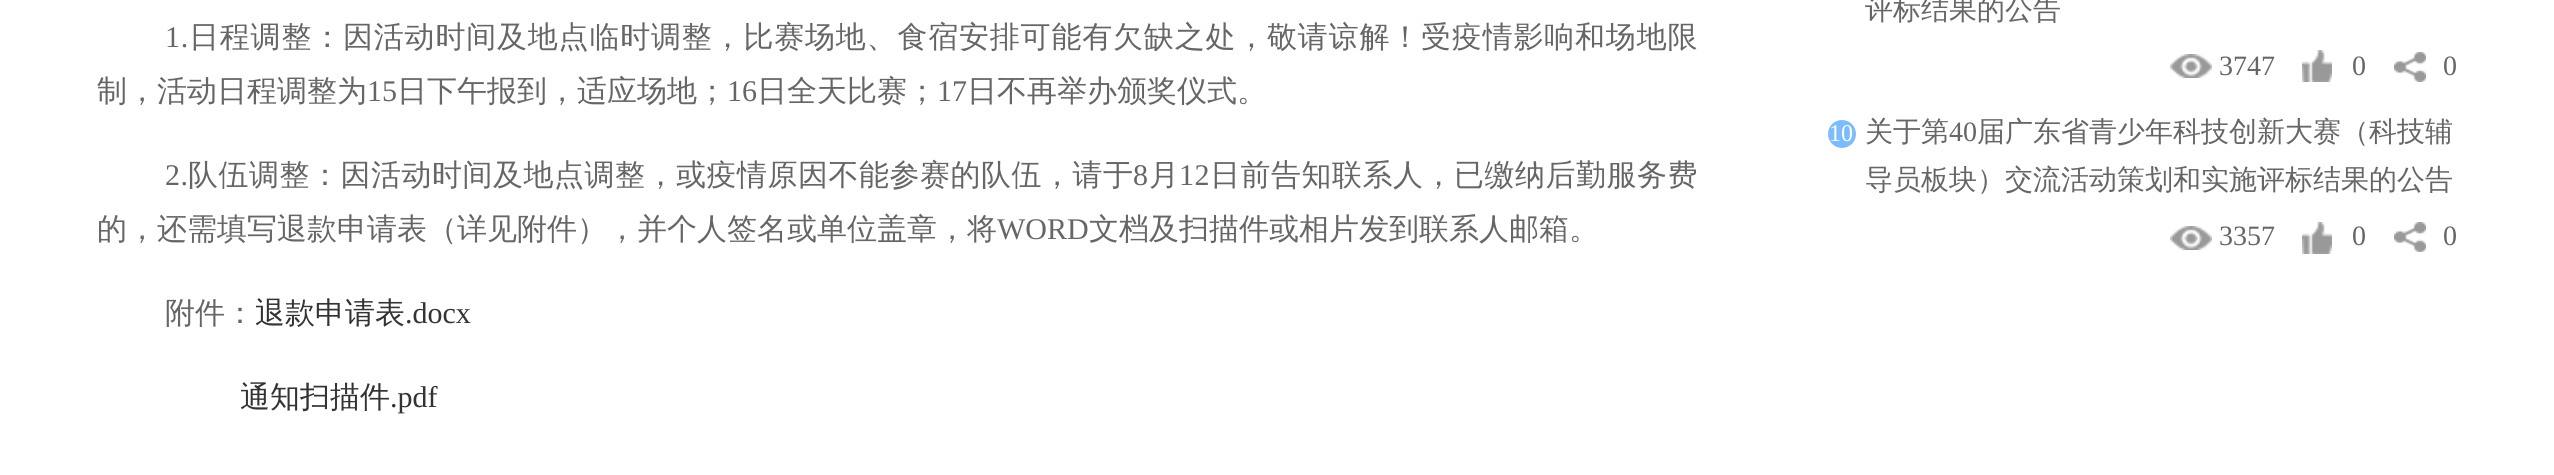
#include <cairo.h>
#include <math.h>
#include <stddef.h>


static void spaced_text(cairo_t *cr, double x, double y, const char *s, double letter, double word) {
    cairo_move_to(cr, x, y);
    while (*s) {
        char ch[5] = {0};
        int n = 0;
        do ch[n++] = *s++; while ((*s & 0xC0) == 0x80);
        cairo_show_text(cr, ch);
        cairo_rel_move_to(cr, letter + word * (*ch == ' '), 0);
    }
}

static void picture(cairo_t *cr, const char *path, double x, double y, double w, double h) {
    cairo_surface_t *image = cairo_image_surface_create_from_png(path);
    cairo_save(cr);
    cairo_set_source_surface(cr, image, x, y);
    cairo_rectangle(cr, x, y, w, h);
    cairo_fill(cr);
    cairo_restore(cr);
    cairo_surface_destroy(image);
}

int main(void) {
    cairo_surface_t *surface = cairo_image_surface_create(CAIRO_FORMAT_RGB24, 2554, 475);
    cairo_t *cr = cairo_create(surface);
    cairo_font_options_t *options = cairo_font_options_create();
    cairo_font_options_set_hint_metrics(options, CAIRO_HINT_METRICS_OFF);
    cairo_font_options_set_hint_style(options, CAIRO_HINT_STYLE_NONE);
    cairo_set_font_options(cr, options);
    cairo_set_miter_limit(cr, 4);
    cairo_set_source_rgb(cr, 1, 1, 1);
    cairo_paint(cr);
    cairo_select_font_face(cr, "Liberation Serif", CAIRO_FONT_SLANT_NORMAL, CAIRO_FONT_WEIGHT_NORMAL);
    cairo_set_font_size(cr, 30);
    cairo_set_source_rgb(cr, 0.4, 0.4, 0.4);
    spaced_text(cr, 165, 47, "1.", 0.8, 0);
    cairo_select_font_face(cr, "WenQuanYi Zen Hei Medium", CAIRO_FONT_SLANT_NORMAL, CAIRO_FONT_WEIGHT_NORMAL);
    spaced_text(cr, 189, 47, "日程调整：因活动时间及地点临时调整，比赛场地、食宿安排可能有欠缺之处，敬请谅解！受疫情影响和场地限", 0.8, 0);
    cairo_move_to(cr, 97, 101);
    cairo_show_text(cr, "制，活动日程调整为");
    cairo_select_font_face(cr, "Liberation Serif", CAIRO_FONT_SLANT_NORMAL, CAIRO_FONT_WEIGHT_NORMAL);
    cairo_move_to(cr, 367, 101);
    cairo_show_text(cr, "15");
    cairo_select_font_face(cr, "WenQuanYi Zen Hei Medium", CAIRO_FONT_SLANT_NORMAL, CAIRO_FONT_WEIGHT_NORMAL);
    cairo_move_to(cr, 397, 101);
    cairo_show_text(cr, "日下午报到，适应场地；");
    cairo_select_font_face(cr, "Liberation Serif", CAIRO_FONT_SLANT_NORMAL, CAIRO_FONT_WEIGHT_NORMAL);
    cairo_move_to(cr, 727, 101);
    cairo_show_text(cr, "16");
    cairo_select_font_face(cr, "WenQuanYi Zen Hei Medium", CAIRO_FONT_SLANT_NORMAL, CAIRO_FONT_WEIGHT_NORMAL);
    cairo_move_to(cr, 757, 101);
    cairo_show_text(cr, "日全天比赛；");
    cairo_select_font_face(cr, "Liberation Serif", CAIRO_FONT_SLANT_NORMAL, CAIRO_FONT_WEIGHT_NORMAL);
    cairo_move_to(cr, 937, 101);
    cairo_show_text(cr, "17");
    cairo_select_font_face(cr, "WenQuanYi Zen Hei Medium", CAIRO_FONT_SLANT_NORMAL, CAIRO_FONT_WEIGHT_NORMAL);
    cairo_move_to(cr, 967, 101);
    cairo_show_text(cr, "日不再举办颁奖仪式。");
    cairo_select_font_face(cr, "Liberation Serif", CAIRO_FONT_SLANT_NORMAL, CAIRO_FONT_WEIGHT_NORMAL);
    spaced_text(cr, 165, 185, "2.", 0.5, 0);
    cairo_select_font_face(cr, "WenQuanYi Zen Hei Medium", CAIRO_FONT_SLANT_NORMAL, CAIRO_FONT_WEIGHT_NORMAL);
    spaced_text(cr, 188, 185, "队伍调整：因活动时间及地点调整，或疫情原因不能参赛的队伍，请于", 0.5, 0);
    cairo_select_font_face(cr, "Liberation Serif", CAIRO_FONT_SLANT_NORMAL, CAIRO_FONT_WEIGHT_NORMAL);
    spaced_text(cr, 1133, 185, "8", 0.5, 0);
    cairo_select_font_face(cr, "WenQuanYi Zen Hei Medium", CAIRO_FONT_SLANT_NORMAL, CAIRO_FONT_WEIGHT_NORMAL);
    spaced_text(cr, 1149, 185, "月", 0.5, 0);
    cairo_select_font_face(cr, "Liberation Serif", CAIRO_FONT_SLANT_NORMAL, CAIRO_FONT_WEIGHT_NORMAL);
    spaced_text(cr, 1179, 185, "12", 0.5, 0);
    cairo_select_font_face(cr, "WenQuanYi Zen Hei Medium", CAIRO_FONT_SLANT_NORMAL, CAIRO_FONT_WEIGHT_NORMAL);
    spaced_text(cr, 1210, 185, "日前告知联系人，已缴纳后勤服务费", 0.5, 0);
    cairo_move_to(cr, 97, 239);
    cairo_show_text(cr, "的，还需填写退款申请表（详见附件），并个人签名或单位盖章，将");
    cairo_select_font_face(cr, "Liberation Serif", CAIRO_FONT_SLANT_NORMAL, CAIRO_FONT_WEIGHT_NORMAL);
    cairo_move_to(cr, 997, 239);
    cairo_show_text(cr, "WORD");
    cairo_select_font_face(cr, "WenQuanYi Zen Hei Medium", CAIRO_FONT_SLANT_NORMAL, CAIRO_FONT_WEIGHT_NORMAL);
    cairo_move_to(cr, 1089, 239);
    cairo_show_text(cr, "文档及扫描件或相片发到联系人邮箱。");
    cairo_move_to(cr, 165, 323);
    cairo_show_text(cr, "附件：");
    cairo_set_source_rgb(cr, 0.2, 0.2, 0.2);
    cairo_move_to(cr, 255, 323);
    cairo_show_text(cr, "退款申请表");
    cairo_select_font_face(cr, "Liberation Serif", CAIRO_FONT_SLANT_NORMAL, CAIRO_FONT_WEIGHT_NORMAL);
    cairo_move_to(cr, 405, 323);
    cairo_show_text(cr, ".docx");
    cairo_select_font_face(cr, "WenQuanYi Zen Hei Medium", CAIRO_FONT_SLANT_NORMAL, CAIRO_FONT_WEIGHT_NORMAL);
    cairo_move_to(cr, 240, 407);
    cairo_show_text(cr, "通知扫描件");
    cairo_select_font_face(cr, "Liberation Serif", CAIRO_FONT_SLANT_NORMAL, CAIRO_FONT_WEIGHT_NORMAL);
    cairo_move_to(cr, 390, 407);
    cairo_show_text(cr, ".pdf");
    cairo_select_font_face(cr, "WenQuanYi Zen Hei Medium", CAIRO_FONT_SLANT_NORMAL, CAIRO_FONT_WEIGHT_NORMAL);
    cairo_set_font_size(cr, 28);
    cairo_set_source_rgb(cr, 0.4, 0.4, 0.4);
    cairo_move_to(cr, 1865, 19);
    cairo_show_text(cr, "评标结果的公告");
    picture(cr, "img1.png", 2170, 54, 42, 24);
    cairo_select_font_face(cr, "Liberation Serif", CAIRO_FONT_SLANT_NORMAL, CAIRO_FONT_WEIGHT_NORMAL);
    cairo_move_to(cr, 2219, 75);
    cairo_show_text(cr, "3747");
    picture(cr, "img2.png", 2302, 50, 30, 32);
    cairo_move_to(cr, 2352, 75);
    cairo_show_text(cr, "0");
    picture(cr, "img3.png", 2394, 52, 32, 30);
    cairo_move_to(cr, 2443, 75);
    cairo_show_text(cr, "0");
    cairo_set_source_rgb(cr, 0.49, 0.733, 1);
    cairo_new_path(cr);
    cairo_arc(cr, 1842, 134, 14, 0, 2 * M_PI);
    cairo_fill(cr);
    cairo_set_font_size(cr, 24);
    cairo_set_source_rgb(cr, 1, 1, 1);
    cairo_move_to(cr, 1829, 141);
    cairo_show_text(cr, "10");
    cairo_select_font_face(cr, "WenQuanYi Zen Hei Medium", CAIRO_FONT_SLANT_NORMAL, CAIRO_FONT_WEIGHT_NORMAL);
    cairo_set_font_size(cr, 28);
    cairo_set_source_rgb(cr, 0.4, 0.4, 0.4);
    cairo_move_to(cr, 1865, 141);
    cairo_show_text(cr, "关于第");
    cairo_select_font_face(cr, "Liberation Serif", CAIRO_FONT_SLANT_NORMAL, CAIRO_FONT_WEIGHT_NORMAL);
    cairo_move_to(cr, 1949, 141);
    cairo_show_text(cr, "40");
    cairo_select_font_face(cr, "WenQuanYi Zen Hei Medium", CAIRO_FONT_SLANT_NORMAL, CAIRO_FONT_WEIGHT_NORMAL);
    cairo_move_to(cr, 1977, 141);
    cairo_show_text(cr, "届广东省青少年科技创新大赛（科技辅");
    cairo_move_to(cr, 1865, 189);
    cairo_show_text(cr, "导员板块）交流活动策划和实施评标结果的公告");
    picture(cr, "img1.png", 2170, 226, 42, 24);
    cairo_select_font_face(cr, "Liberation Serif", CAIRO_FONT_SLANT_NORMAL, CAIRO_FONT_WEIGHT_NORMAL);
    cairo_move_to(cr, 2219, 245);
    cairo_show_text(cr, "3357");
    picture(cr, "img2.png", 2302, 222, 30, 32);
    cairo_move_to(cr, 2352, 245);
    cairo_show_text(cr, "0");
    picture(cr, "img3.png", 2394, 222, 32, 30);
    cairo_move_to(cr, 2443, 245);
    cairo_show_text(cr, "0");
    cairo_surface_write_to_png(surface, "page.png");
    cairo_font_options_destroy(options);
    cairo_destroy(cr);
    cairo_surface_destroy(surface);
    return 0;
}
